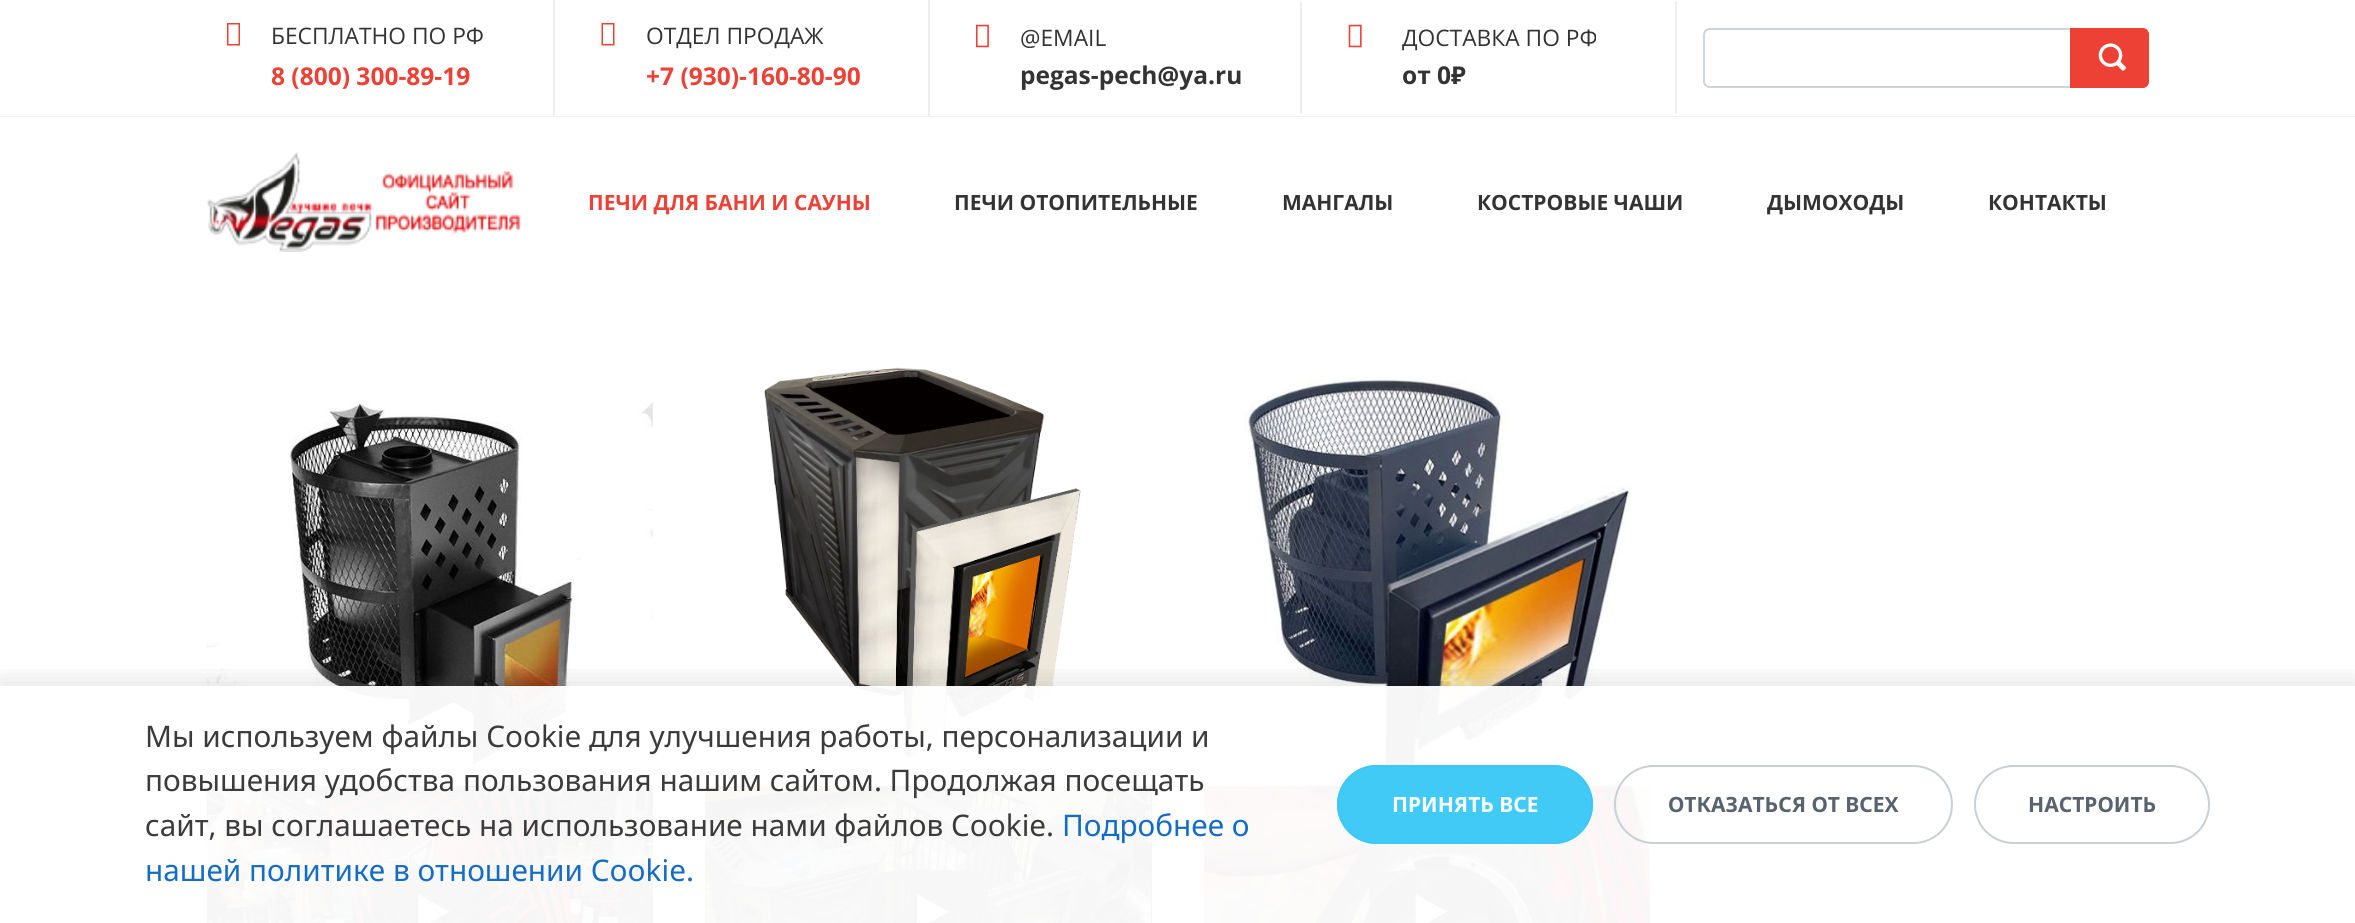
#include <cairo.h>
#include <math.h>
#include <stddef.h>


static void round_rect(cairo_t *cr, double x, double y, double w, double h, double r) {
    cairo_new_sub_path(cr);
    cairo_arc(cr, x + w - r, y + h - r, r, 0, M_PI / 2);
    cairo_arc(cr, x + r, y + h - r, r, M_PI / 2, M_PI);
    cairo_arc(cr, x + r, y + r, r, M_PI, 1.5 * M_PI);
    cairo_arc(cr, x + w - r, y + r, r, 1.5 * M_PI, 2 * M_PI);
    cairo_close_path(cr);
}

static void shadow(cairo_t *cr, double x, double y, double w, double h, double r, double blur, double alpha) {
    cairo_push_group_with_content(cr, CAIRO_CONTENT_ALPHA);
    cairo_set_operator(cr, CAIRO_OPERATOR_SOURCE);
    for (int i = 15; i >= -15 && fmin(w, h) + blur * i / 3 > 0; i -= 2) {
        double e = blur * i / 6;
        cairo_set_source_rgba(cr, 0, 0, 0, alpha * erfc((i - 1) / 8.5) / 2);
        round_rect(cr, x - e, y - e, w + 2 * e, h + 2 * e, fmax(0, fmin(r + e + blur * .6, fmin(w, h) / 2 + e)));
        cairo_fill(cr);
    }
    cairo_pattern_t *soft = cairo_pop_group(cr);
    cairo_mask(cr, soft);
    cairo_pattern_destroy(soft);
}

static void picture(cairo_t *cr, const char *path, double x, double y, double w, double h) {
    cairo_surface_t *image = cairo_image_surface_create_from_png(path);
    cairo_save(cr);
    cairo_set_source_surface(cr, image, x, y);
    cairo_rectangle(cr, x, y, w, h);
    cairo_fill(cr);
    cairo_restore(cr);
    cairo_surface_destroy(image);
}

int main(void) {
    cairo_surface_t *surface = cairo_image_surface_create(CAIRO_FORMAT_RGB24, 2355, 923);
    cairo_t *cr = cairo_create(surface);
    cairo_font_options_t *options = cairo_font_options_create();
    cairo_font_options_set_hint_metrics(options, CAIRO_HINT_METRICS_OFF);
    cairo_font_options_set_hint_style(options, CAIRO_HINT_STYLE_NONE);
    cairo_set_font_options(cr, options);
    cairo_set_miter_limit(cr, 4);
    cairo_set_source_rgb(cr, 1, 1, 1);
    cairo_paint(cr);
    cairo_set_source_rgb(cr, 0.933, 0.933, 0.933);
    cairo_rectangle(cr, 0, 116, 2355, 1);
    cairo_fill(cr);
    cairo_rectangle(cr, 553, 0, 2, 116);
    cairo_fill(cr);
    cairo_set_source_rgb(cr, 0.933, 0.255, 0.212);
    cairo_new_path(cr);
    cairo_move_to(cr, 227, 45.5);
    cairo_line_to(cr, 227, 23);
    cairo_line_to(cr, 240, 23);
    cairo_line_to(cr, 240, 45.5);
    cairo_close_path(cr);
    cairo_move_to(cr, 228.5, 44);
    cairo_line_to(cr, 238.5, 44);
    cairo_line_to(cr, 238.5, 24.5);
    cairo_line_to(cr, 228.5, 24.5);
    cairo_close_path(cr);
    cairo_fill(cr);
    cairo_select_font_face(cr, "Open Sans", CAIRO_FONT_SLANT_NORMAL, CAIRO_FONT_WEIGHT_NORMAL);
    cairo_set_font_size(cr, 22.75);
    cairo_set_source_rgb(cr, 0.2, 0.2, 0.2);
    cairo_move_to(cr, 271, 44);
    cairo_show_text(cr, "БЕСПЛАТНО ПО РФ");
    cairo_select_font_face(cr, "Open Sans", CAIRO_FONT_SLANT_NORMAL, CAIRO_FONT_WEIGHT_BOLD);
    cairo_set_font_size(cr, 24.5);
    cairo_set_source_rgb(cr, 0.933, 0.255, 0.212);
    cairo_move_to(cr, 271, 85);
    cairo_show_text(cr, "8 (800) 300-89-19");
    cairo_set_source_rgb(cr, 0.933, 0.933, 0.933);
    cairo_rectangle(cr, 928, 0, 2, 116);
    cairo_fill(cr);
    cairo_set_source_rgb(cr, 0.933, 0.255, 0.212);
    cairo_new_path(cr);
    cairo_move_to(cr, 601.5, 45.5);
    cairo_line_to(cr, 601.5, 23);
    cairo_line_to(cr, 614.5, 23);
    cairo_line_to(cr, 614.5, 45.5);
    cairo_close_path(cr);
    cairo_move_to(cr, 603, 44);
    cairo_line_to(cr, 613, 44);
    cairo_line_to(cr, 613, 24.5);
    cairo_line_to(cr, 603, 24.5);
    cairo_close_path(cr);
    cairo_fill(cr);
    cairo_select_font_face(cr, "Open Sans", CAIRO_FONT_SLANT_NORMAL, CAIRO_FONT_WEIGHT_NORMAL);
    cairo_set_font_size(cr, 22.75);
    cairo_set_source_rgb(cr, 0.2, 0.2, 0.2);
    cairo_move_to(cr, 646, 44);
    cairo_show_text(cr, "ОТДЕЛ ПРОДАЖ");
    cairo_select_font_face(cr, "Open Sans", CAIRO_FONT_SLANT_NORMAL, CAIRO_FONT_WEIGHT_BOLD);
    cairo_set_font_size(cr, 24.5);
    cairo_set_source_rgb(cr, 0.933, 0.255, 0.212);
    cairo_move_to(cr, 646, 85);
    cairo_show_text(cr, "+7 (930)-160-80-90");
    cairo_set_source_rgb(cr, 0.933, 0.933, 0.933);
    cairo_rectangle(cr, 1300, 2, 2, 112);
    cairo_fill(cr);
    picture(cr, "img1.png", 975, 24, 14, 24);
    cairo_select_font_face(cr, "Open Sans", CAIRO_FONT_SLANT_NORMAL, CAIRO_FONT_WEIGHT_NORMAL);
    cairo_set_font_size(cr, 22.75);
    cairo_set_source_rgb(cr, 0.2, 0.2, 0.2);
    cairo_move_to(cr, 1020, 46);
    cairo_show_text(cr, "@EMAIL");
    cairo_select_font_face(cr, "Open Sans", CAIRO_FONT_SLANT_NORMAL, CAIRO_FONT_WEIGHT_BOLD);
    cairo_set_font_size(cr, 24.5);
    cairo_move_to(cr, 1020, 84);
    cairo_show_text(cr, "pegas-pech@ya.ru");
    cairo_set_source_rgb(cr, 0.933, 0.933, 0.933);
    cairo_rectangle(cr, 1675, 2, 2, 112);
    cairo_fill(cr);
    picture(cr, "img2.png", 1348, 24, 14, 24);
    cairo_select_font_face(cr, "Open Sans", CAIRO_FONT_SLANT_NORMAL, CAIRO_FONT_WEIGHT_NORMAL);
    cairo_set_font_size(cr, 22.75);
    cairo_set_source_rgb(cr, 0.2, 0.2, 0.2);
    cairo_move_to(cr, 1402, 46);
    cairo_show_text(cr, "ДОСТАВКА ПО РФ");
    cairo_select_font_face(cr, "Open Sans", CAIRO_FONT_SLANT_NORMAL, CAIRO_FONT_WEIGHT_BOLD);
    cairo_set_font_size(cr, 24.5);
    cairo_move_to(cr, 1402, 84);
    cairo_show_text(cr, "от 0");
    cairo_select_font_face(cr, "Noto Sans", CAIRO_FONT_SLANT_NORMAL, CAIRO_FONT_WEIGHT_BOLD);
    cairo_move_to(cr, 1451, 84);
    cairo_show_text(cr, "₽");
    cairo_new_path(cr);
    cairo_move_to(cr, 1710, 29);
    cairo_line_to(cr, 2071, 29);
    cairo_line_to(cr, 2071, 87);
    cairo_line_to(cr, 1710, 87);
    cairo_curve_to(cr, 1706.5, 87, 1704, 84.5, 1704, 81);
    cairo_line_to(cr, 1704, 35);
    cairo_curve_to(cr, 1704, 31.5, 1706.5, 29, 1710, 29);
    cairo_close_path(cr);
    cairo_set_source_rgb(cr, 0.808, 0.831, 0.855);
    cairo_stroke(cr);
    cairo_set_source_rgb(cr, 0.933, 0.255, 0.212);
    cairo_new_path(cr);
    cairo_move_to(cr, 2070, 28);
    cairo_line_to(cr, 2142, 28);
    cairo_curve_to(cr, 2146, 28, 2149, 31, 2149, 35);
    cairo_line_to(cr, 2149, 81);
    cairo_curve_to(cr, 2149, 85, 2146, 88, 2142, 88);
    cairo_line_to(cr, 2070, 88);
    cairo_close_path(cr);
    cairo_fill(cr);
    picture(cr, "img3.png", 2098, 43, 28, 28);
    cairo_new_path(cr);
    cairo_move_to(cr, 2071, 29);
    cairo_line_to(cr, 2142, 29);
    cairo_curve_to(cr, 2145.5, 29, 2148, 31.5, 2148, 35);
    cairo_line_to(cr, 2148, 81);
    cairo_curve_to(cr, 2148, 84.5, 2145.5, 87, 2142, 87);
    cairo_line_to(cr, 2071, 87);
    cairo_close_path(cr);
    cairo_stroke(cr);
    picture(cr, "img4.png", 207, 152, 314, 100);
    cairo_select_font_face(cr, "Open Sans", CAIRO_FONT_SLANT_NORMAL, CAIRO_FONT_WEIGHT_BOLD);
    cairo_set_font_size(cr, 21);
    cairo_move_to(cr, 588, 210);
    cairo_show_text(cr, "ПЕЧИ ДЛЯ БАНИ И САУНЫ");
    cairo_set_source_rgb(cr, 0.2, 0.2, 0.2);
    cairo_move_to(cr, 954, 210);
    cairo_show_text(cr, "ПЕЧИ ОТОПИТЕЛЬНЫЕ");
    cairo_move_to(cr, 1282, 210);
    cairo_show_text(cr, "МАНГАЛЫ");
    cairo_move_to(cr, 1477, 210);
    cairo_show_text(cr, "КОСТРОВЫЕ ЧАШИ");
    cairo_move_to(cr, 1767, 210);
    cairo_show_text(cr, "ДЫМОХОДЫ");
    cairo_move_to(cr, 1988, 210);
    cairo_show_text(cr, "КОНТАКТЫ");
    picture(cr, "img5.png", 206, 401, 447, 364);
    cairo_set_source_rgb(cr, 0, 0, 0);
    cairo_rectangle(cr, 652, 786, 1, 137);
    cairo_fill(cr);
    picture(cr, "img6.png", 206, 785, 447, 138);
    picture(cr, "img7.png", 371, 870, 119, 53);
    picture(cr, "img8.png", 764, 367, 326, 390);
    cairo_rectangle(cr, 705, 786, 447, 137);
    cairo_fill(cr);
    picture(cr, "img9.png", 705, 785, 447, 138);
    picture(cr, "img10.png", 870, 870, 119, 53);
    picture(cr, "img11.png", 1244, 375, 387, 411);
    picture(cr, "img12.png", 1204, 785, 447, 138);
    picture(cr, "img13.png", 1369, 870, 119, 53);
    cairo_save(cr);
    cairo_rectangle(cr, 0, 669, 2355, 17);
    cairo_clip(cr);
    cairo_set_source_rgb(cr, 0, 0, 0);
    shadow(cr, 0, 679, 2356, 238, 0, 12, 0.1);
    cairo_restore(cr);
    cairo_set_source_rgba(cr, 1, 1, 1, 0.96);
    cairo_rectangle(cr, 206, 686, 1445, 237);
    cairo_fill(cr);
    cairo_select_font_face(cr, "Noto Sans", CAIRO_FONT_SLANT_NORMAL, CAIRO_FONT_WEIGHT_NORMAL);
    cairo_set_font_size(cr, 29.75);
    cairo_set_source_rgb(cr, 0.231, 0.231, 0.231);
    cairo_move_to(cr, 145, 747);
    cairo_show_text(cr, "Мы используем файлы Cookie для улучшения работы, персонализации и");
    cairo_move_to(cr, 145, 791);
    cairo_show_text(cr, "повышения удобства пользования нашим сайтом. Продолжая посещать");
    cairo_move_to(cr, 145, 836);
    cairo_show_text(cr, "сайт, вы соглашаетесь на использование нами файлов Cookie.");
    cairo_set_source_rgb(cr, 0.082, 0.424, 0.773);
    cairo_move_to(cr, 1062, 836);
    cairo_show_text(cr, "Подробнее о");
    cairo_move_to(cr, 145, 881);
    cairo_show_text(cr, "нашей политике в отношении Cookie.");
    cairo_set_source_rgba(cr, 0.231, 0.784, 0.961, 0.96);
    round_rect(cr, 1337, 765, 256, 79, 39.5);
    cairo_fill(cr);
    round_rect(cr, 1338, 766, 254, 77, 38.5);
    cairo_stroke(cr);
    cairo_select_font_face(cr, "Noto Sans", CAIRO_FONT_SLANT_NORMAL, CAIRO_FONT_WEIGHT_BOLD);
    cairo_set_font_size(cr, 21);
    cairo_set_source_rgb(cr, 0.969, 0.992, 1);
    cairo_move_to(cr, 1392, 812);
    cairo_show_text(cr, "ПРИНЯТЬ ВСЕ");
    round_rect(cr, 1615, 766, 337, 77, 38.5);
    cairo_set_source_rgba(cr, 0.776, 0.804, 0.827, 0.96);
    cairo_stroke(cr);
    cairo_set_source_rgb(cr, 0.349, 0.388, 0.435);
    cairo_move_to(cr, 1668, 812);
    cairo_show_text(cr, "ОТКАЗАТЬСЯ ОТ ВСЕХ");
    round_rect(cr, 1975, 766, 234, 77, 38.5);
    cairo_set_source_rgb(cr, 0.784, 0.812, 0.835);
    cairo_stroke(cr);
    cairo_set_source_rgb(cr, 0.349, 0.388, 0.435);
    cairo_move_to(cr, 2028, 812);
    cairo_show_text(cr, "НАСТРОИТЬ");
    cairo_surface_write_to_png(surface, "page.png");
    cairo_font_options_destroy(options);
    cairo_destroy(cr);
    cairo_surface_destroy(surface);
    return 0;
}
